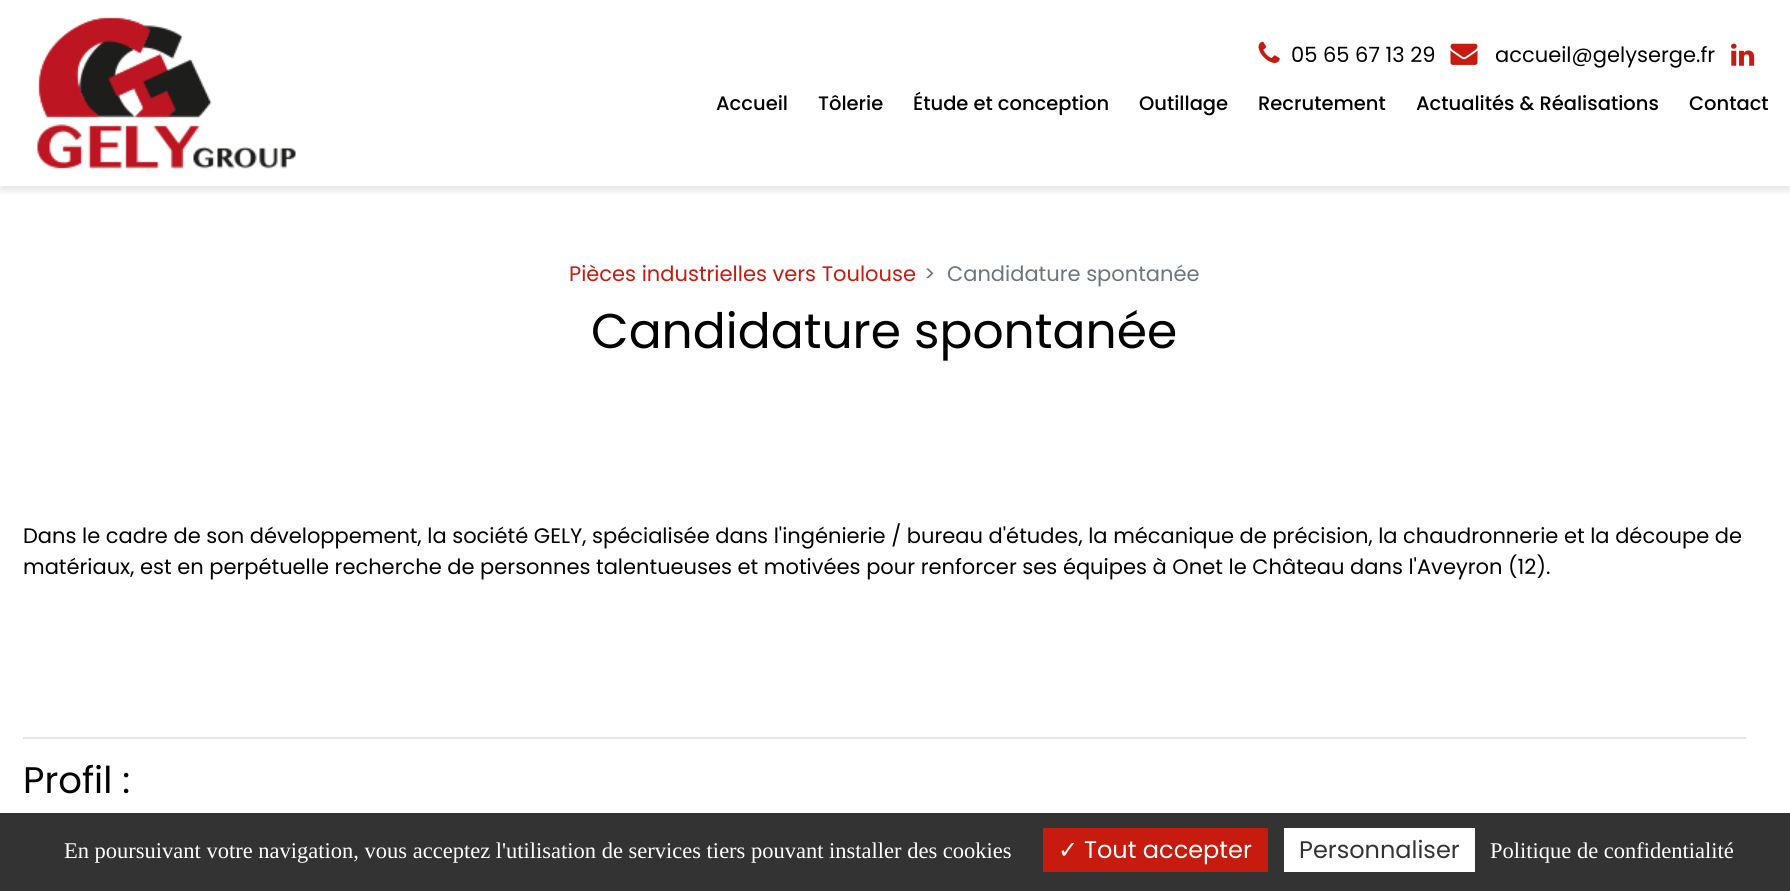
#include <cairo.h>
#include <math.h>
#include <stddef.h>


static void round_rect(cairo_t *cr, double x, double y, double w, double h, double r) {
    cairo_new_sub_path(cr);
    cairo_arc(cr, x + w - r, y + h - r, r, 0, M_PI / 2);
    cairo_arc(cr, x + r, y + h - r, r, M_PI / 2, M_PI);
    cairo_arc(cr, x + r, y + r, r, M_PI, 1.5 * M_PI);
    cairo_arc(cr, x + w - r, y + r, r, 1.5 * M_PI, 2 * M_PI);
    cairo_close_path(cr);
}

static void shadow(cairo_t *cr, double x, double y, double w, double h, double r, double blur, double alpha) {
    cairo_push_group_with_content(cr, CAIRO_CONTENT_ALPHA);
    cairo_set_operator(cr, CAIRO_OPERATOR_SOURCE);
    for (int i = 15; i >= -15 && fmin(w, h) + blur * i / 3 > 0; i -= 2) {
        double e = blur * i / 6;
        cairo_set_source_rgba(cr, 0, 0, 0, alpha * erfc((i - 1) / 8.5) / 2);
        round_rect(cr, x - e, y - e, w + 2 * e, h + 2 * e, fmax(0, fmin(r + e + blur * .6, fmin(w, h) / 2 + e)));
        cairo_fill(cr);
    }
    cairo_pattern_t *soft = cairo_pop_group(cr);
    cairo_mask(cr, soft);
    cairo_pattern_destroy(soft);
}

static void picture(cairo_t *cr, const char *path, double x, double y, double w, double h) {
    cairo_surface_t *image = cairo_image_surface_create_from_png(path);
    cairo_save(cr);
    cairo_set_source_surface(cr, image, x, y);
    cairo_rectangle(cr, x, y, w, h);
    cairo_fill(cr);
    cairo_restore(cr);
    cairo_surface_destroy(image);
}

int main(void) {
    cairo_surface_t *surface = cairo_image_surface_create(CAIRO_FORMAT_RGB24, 1790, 891);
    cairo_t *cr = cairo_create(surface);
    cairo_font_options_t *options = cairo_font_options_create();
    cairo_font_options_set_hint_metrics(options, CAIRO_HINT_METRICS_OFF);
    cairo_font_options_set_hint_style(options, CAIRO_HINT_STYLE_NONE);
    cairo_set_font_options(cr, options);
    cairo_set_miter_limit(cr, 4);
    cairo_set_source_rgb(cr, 1, 1, 1);
    cairo_paint(cr);
    cairo_save(cr);
    cairo_rectangle(cr, 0, 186, 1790, 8);
    cairo_clip(cr);
    cairo_set_source_rgb(cr, 0, 0, 0);
    shadow(cr, 0, 5, 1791, 186, 0, 4, 0.1);
    cairo_restore(cr);
    picture(cr, "img1.png", 37, 17, 259, 152);
    picture(cr, "img2.png", 1258, 41, 22, 22);
    cairo_select_font_face(cr, "Poppins", CAIRO_FONT_SLANT_NORMAL, CAIRO_FONT_WEIGHT_NORMAL);
    cairo_set_font_size(cr, 21);
    cairo_set_source_rgb(cr, 0.004, 0.004, 0.004);
    cairo_move_to(cr, 1291, 62);
    cairo_show_text(cr, "05 65 67 13 29");
    picture(cr, "img3.png", 1450, 43, 28, 22);
    cairo_move_to(cr, 1495, 62);
    cairo_show_text(cr, "accueil@gelyserge.fr");
    picture(cr, "img4.png", 1731, 43, 24, 23);
    cairo_select_font_face(cr, "Poppins Medium", CAIRO_FONT_SLANT_NORMAL, CAIRO_FONT_WEIGHT_NORMAL);
    cairo_set_font_size(cr, 19.5);
    cairo_move_to(cr, 716, 110);
    cairo_show_text(cr, "Accueil");
    cairo_move_to(cr, 818, 110);
    cairo_show_text(cr, "Tôlerie");
    cairo_move_to(cr, 913, 110);
    cairo_show_text(cr, "Étude et conception");
    cairo_move_to(cr, 1139, 110);
    cairo_show_text(cr, "Outillage");
    cairo_move_to(cr, 1258, 110);
    cairo_show_text(cr, "Recrutement");
    cairo_move_to(cr, 1416, 110);
    cairo_show_text(cr, "Actualités & Réalisations");
    cairo_move_to(cr, 1689, 110);
    cairo_show_text(cr, "Contact");
    cairo_select_font_face(cr, "Poppins", CAIRO_FONT_SLANT_NORMAL, CAIRO_FONT_WEIGHT_NORMAL);
    cairo_set_font_size(cr, 21);
    cairo_set_source_rgb(cr, 0.784, 0.106, 0.059);
    cairo_move_to(cr, 569, 281);
    cairo_show_text(cr, "Pièces industrielles vers Toulouse");
    cairo_set_source_rgb(cr, 0.424, 0.459, 0.49);
    cairo_move_to(cr, 924, 281);
    cairo_show_text(cr, ">");
    cairo_move_to(cr, 947, 281);
    cairo_show_text(cr, "Candidature spontanée");
    cairo_set_font_size(cr, 48.75);
    cairo_set_source_rgb(cr, 0.004, 0.004, 0.004);
    cairo_move_to(cr, 591, 348);
    cairo_show_text(cr, "Candidature spontanée");
    cairo_set_font_size(cr, 21);
    cairo_move_to(cr, 23, 543);
    cairo_show_text(cr, "Dans le cadre de son développement, la société GELY, spécialisée dans l'ingénierie / bureau d'études, la mécanique de précision, la chaudronnerie et la découpe de");
    cairo_move_to(cr, 23, 574);
    cairo_show_text(cr, "matériaux, est en perpétuelle recherche de personnes talentueuses et motivées pour renforcer ses équipes à Onet le Château dans l'Aveyron (12).");
    cairo_set_source_rgb(cr, 0.902, 0.902, 0.902);
    cairo_rectangle(cr, 23, 737, 1723, 2);
    cairo_fill(cr);
    cairo_set_font_size(cr, 37);
    cairo_set_source_rgb(cr, 0.004, 0.004, 0.004);
    cairo_move_to(cr, 23, 793);
    cairo_show_text(cr, "Profil :");
    cairo_set_source_rgb(cr, 0.2, 0.2, 0.2);
    cairo_rectangle(cr, 0, 813, 1790, 78);
    cairo_fill(cr);
    cairo_select_font_face(cr, "Liberation Serif", CAIRO_FONT_SLANT_NORMAL, CAIRO_FONT_WEIGHT_NORMAL);
    cairo_set_font_size(cr, 22.5);
    cairo_set_source_rgb(cr, 1, 1, 1);
    cairo_move_to(cr, 64, 858);
    cairo_show_text(cr, "En poursuivant votre navigation, vous acceptez l'utilisation de services tiers pouvant installer des cookies");
    cairo_set_source_rgb(cr, 0.784, 0.106, 0.059);
    cairo_rectangle(cr, 1043, 828, 225, 44);
    cairo_fill(cr);
    cairo_select_font_face(cr, "DejaVu Sans", CAIRO_FONT_SLANT_NORMAL, CAIRO_FONT_WEIGHT_NORMAL);
    cairo_set_font_size(cr, 24);
    cairo_set_source_rgb(cr, 1, 1, 1);
    cairo_move_to(cr, 1058, 858);
    cairo_show_text(cr, "✓");
    cairo_select_font_face(cr, "Poppins", CAIRO_FONT_SLANT_NORMAL, CAIRO_FONT_WEIGHT_NORMAL);
    cairo_move_to(cr, 1084, 858);
    cairo_show_text(cr, "Tout accepter");
    cairo_rectangle(cr, 1284, 828, 191, 44);
    cairo_fill(cr);
    cairo_set_source_rgb(cr, 0.2, 0.2, 0.2);
    cairo_move_to(cr, 1299, 858);
    cairo_show_text(cr, "Personnaliser");
    cairo_select_font_face(cr, "Liberation Serif", CAIRO_FONT_SLANT_NORMAL, CAIRO_FONT_WEIGHT_NORMAL);
    cairo_set_font_size(cr, 22.5);
    cairo_set_source_rgb(cr, 1, 1, 1);
    cairo_move_to(cr, 1490, 858);
    cairo_show_text(cr, "Politique de confidentialité");
    cairo_surface_write_to_png(surface, "page.png");
    cairo_font_options_destroy(options);
    cairo_destroy(cr);
    cairo_surface_destroy(surface);
    return 0;
}
